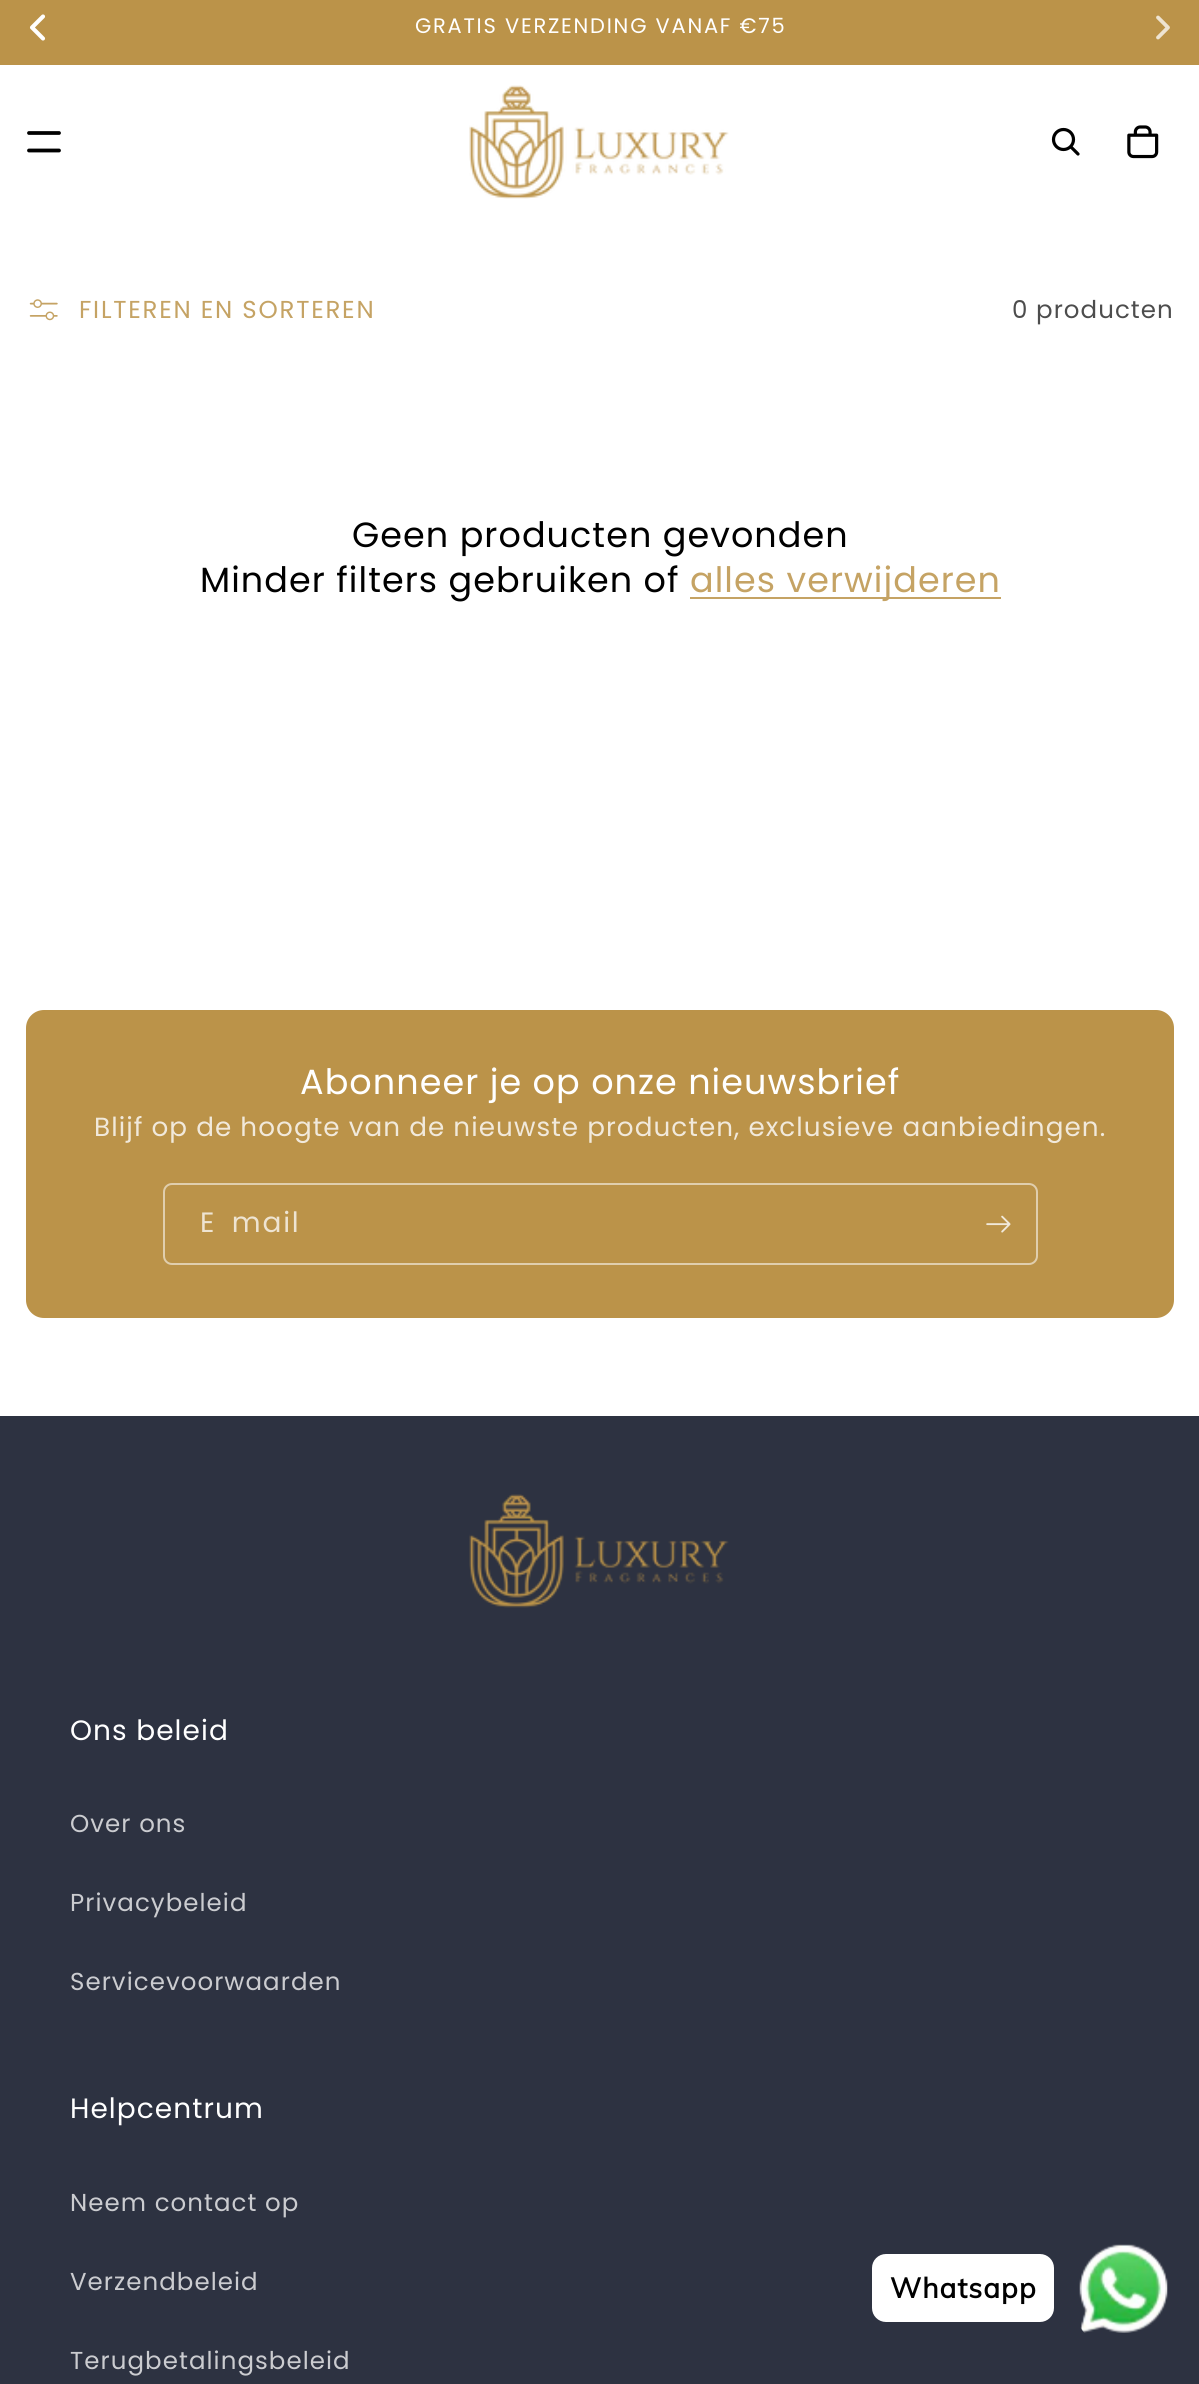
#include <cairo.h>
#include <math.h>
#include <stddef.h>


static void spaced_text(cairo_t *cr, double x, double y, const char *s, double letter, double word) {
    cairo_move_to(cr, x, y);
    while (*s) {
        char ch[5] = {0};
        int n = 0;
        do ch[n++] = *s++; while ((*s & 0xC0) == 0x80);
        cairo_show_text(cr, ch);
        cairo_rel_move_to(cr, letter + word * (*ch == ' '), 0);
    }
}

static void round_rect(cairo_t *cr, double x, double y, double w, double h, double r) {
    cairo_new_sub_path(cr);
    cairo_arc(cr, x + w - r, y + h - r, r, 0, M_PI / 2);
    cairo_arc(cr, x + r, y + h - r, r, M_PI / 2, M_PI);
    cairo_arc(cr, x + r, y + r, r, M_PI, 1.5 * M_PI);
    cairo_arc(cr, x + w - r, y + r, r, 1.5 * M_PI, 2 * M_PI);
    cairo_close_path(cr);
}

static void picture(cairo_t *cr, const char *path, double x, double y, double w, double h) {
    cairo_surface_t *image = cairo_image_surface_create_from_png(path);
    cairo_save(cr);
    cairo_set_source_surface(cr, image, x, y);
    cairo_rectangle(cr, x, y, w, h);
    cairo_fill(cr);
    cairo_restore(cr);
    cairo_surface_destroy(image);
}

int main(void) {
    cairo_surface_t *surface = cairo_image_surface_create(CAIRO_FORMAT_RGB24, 1199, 2384);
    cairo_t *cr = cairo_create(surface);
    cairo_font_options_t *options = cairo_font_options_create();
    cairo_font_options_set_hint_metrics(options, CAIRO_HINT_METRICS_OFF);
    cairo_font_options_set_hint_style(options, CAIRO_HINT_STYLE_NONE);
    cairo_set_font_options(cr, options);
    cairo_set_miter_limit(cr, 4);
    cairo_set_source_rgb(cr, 1, 1, 1);
    cairo_paint(cr);
    cairo_set_source_rgb(cr, 0.733, 0.576, 0.286);
    cairo_rectangle(cr, 0, 0, 1199, 65);
    cairo_fill(cr);
    cairo_new_path(cr);
    cairo_move_to(cr, 43, 38.5);
    cairo_line_to(cr, 32, 27.5);
    cairo_line_to(cr, 43, 16.5);
    cairo_set_source_rgb(cr, 1, 1, 1);
    cairo_set_line_width(cr, 4.1);
    cairo_set_line_cap(cr, CAIRO_LINE_CAP_ROUND);
    cairo_set_line_join(cr, CAIRO_LINE_JOIN_ROUND);
    cairo_stroke(cr);
    cairo_select_font_face(cr, "Poppins", CAIRO_FONT_SLANT_NORMAL, CAIRO_FONT_WEIGHT_NORMAL);
    cairo_set_font_size(cr, 21);
    spaced_text(cr, 415, 33, "GRATIS VERZENDING VANAF €75", 1.75, 0);
    cairo_new_path(cr);
    cairo_move_to(cr, 1158, 17.5);
    cairo_line_to(cr, 1168, 27.5);
    cairo_line_to(cr, 1158, 37.5);
    cairo_set_source_rgb(cr, 0.933, 0.894, 0.824);
    cairo_set_line_width(cr, 3.8);
    cairo_stroke(cr);
    cairo_new_path(cr);
    cairo_move_to(cr, 29, 133);
    cairo_line_to(cr, 59, 133);
    cairo_move_to(cr, 29, 150.5);
    cairo_line_to(cr, 59, 150.5);
    cairo_set_source_rgb(cr, 0, 0, 0);
    cairo_set_line_join(cr, CAIRO_LINE_JOIN_MITER);
    cairo_stroke(cr);
    picture(cr, "img1.png", 469, 85, 260, 114);
    cairo_arc(cr, 1063.5, 139.5, 10, 0, 2 * M_PI);
    cairo_set_line_width(cr, 3.2);
    cairo_set_line_cap(cr, CAIRO_LINE_CAP_BUTT);
    cairo_stroke(cr);
    cairo_new_path(cr);
    cairo_move_to(cr, 1071, 147);
    cairo_line_to(cr, 1078, 154);
    cairo_set_line_cap(cr, CAIRO_LINE_CAP_ROUND);
    cairo_set_line_join(cr, CAIRO_LINE_JOIN_ROUND);
    cairo_stroke(cr);
    picture(cr, "img2.png", 1127, 125, 32, 34);
    picture(cr, "img3.png", 29, 299, 29, 22);
    cairo_set_font_size(cr, 24.5);
    cairo_set_source_rgb(cr, 0.773, 0.639, 0.392);
    spaced_text(cr, 79, 318, "FILTEREN EN SORTEREN", 1.75, 0);
    cairo_set_source_rgb(cr, 0.302, 0.302, 0.302);
    spaced_text(cr, 1012, 318, "0 producten", 1.05, 0);
    cairo_set_font_size(cr, 35);
    cairo_set_source_rgb(cr, 0, 0, 0);
    spaced_text(cr, 352, 547, "Geen producten gevonden", 1.05, 0);
    spaced_text(cr, 200, 592, "Minder filters gebruiken of", 1.05, 0);
    cairo_set_source_rgb(cr, 0.773, 0.639, 0.392);
    cairo_rectangle(cr, 690, 597, 311, 2);
    cairo_fill(cr);
    spaced_text(cr, 690, 592, "alles verwijderen", 1.05, 0);
    cairo_set_source_rgb(cr, 0.733, 0.576, 0.286);
    round_rect(cr, 26, 1010, 1148, 308, 18);
    cairo_fill(cr);
    cairo_set_source_rgb(cr, 1, 1, 1);
    spaced_text(cr, 300, 1094, "Abonneer je op onze nieuwsbrief", 1.05, 0);
    cairo_set_font_size(cr, 26.25);
    cairo_set_source_rgb(cr, 0.945, 0.914, 0.859);
    spaced_text(cr, 94, 1136, "Blijf op de hoogte van de nieuwste producten, exclusieve aanbiedingen.", 1.05, 0);
    round_rect(cr, 164, 1184, 873, 80, 8);
    cairo_set_source_rgb(cr, 0.878, 0.808, 0.678);
    cairo_set_line_width(cr, 2);
    cairo_set_line_cap(cr, CAIRO_LINE_CAP_BUTT);
    cairo_set_line_join(cr, CAIRO_LINE_JOIN_MITER);
    cairo_stroke(cr);
    cairo_set_font_size(cr, 28);
    cairo_set_source_rgb(cr, 0.933, 0.894, 0.824);
    spaced_text(cr, 200, 1232, "E‑mail", 1.75, 0);
    picture(cr, "img4.png", 986, 1215, 25, 18);
    cairo_set_source_rgb(cr, 0.176, 0.196, 0.255);
    cairo_rectangle(cr, 0, 1416, 1199, 968);
    cairo_fill(cr);
    picture(cr, "img5.png", 469, 1494, 260, 114);
    cairo_set_source_rgb(cr, 1, 1, 1);
    spaced_text(cr, 70, 1740, "Ons beleid", 1.05, 0);
    cairo_set_font_size(cr, 24.5);
    cairo_set_source_rgb(cr, 0.796, 0.8, 0.816);
    spaced_text(cr, 70, 1832, "Over ons", 1.05, 0);
    spaced_text(cr, 70, 1911, "Privacybeleid", 1.05, 0);
    spaced_text(cr, 70, 1990, "Servicevoorwaarden", 1.05, 0);
    cairo_set_font_size(cr, 28);
    cairo_set_source_rgb(cr, 1, 1, 1);
    spaced_text(cr, 70, 2118, "Helpcentrum", 1.05, 0);
    cairo_set_font_size(cr, 24.5);
    cairo_set_source_rgb(cr, 0.796, 0.8, 0.816);
    spaced_text(cr, 70, 2211, "Neem contact op", 1.05, 0);
    spaced_text(cr, 70, 2290, "Verzendbeleid", 1.05, 0);
    spaced_text(cr, 70, 2369, "Terugbetalingsbeleid", 1.05, 0);
    picture(cr, "img6.png", 1079, 2244, 89, 89);
    cairo_set_source_rgb(cr, 1, 1, 1);
    round_rect(cr, 872, 2254, 182, 68, 14);
    cairo_fill(cr);
    cairo_select_font_face(cr, "Muli", CAIRO_FONT_SLANT_NORMAL, CAIRO_FONT_WEIGHT_BOLD);
    cairo_set_font_size(cr, 28);
    cairo_set_source_rgb(cr, 0, 0, 0);
    spaced_text(cr, 890, 2298, "Whatsapp", 1.05, 0);
    cairo_surface_write_to_png(surface, "page.png");
    cairo_font_options_destroy(options);
    cairo_destroy(cr);
    cairo_surface_destroy(surface);
    return 0;
}
